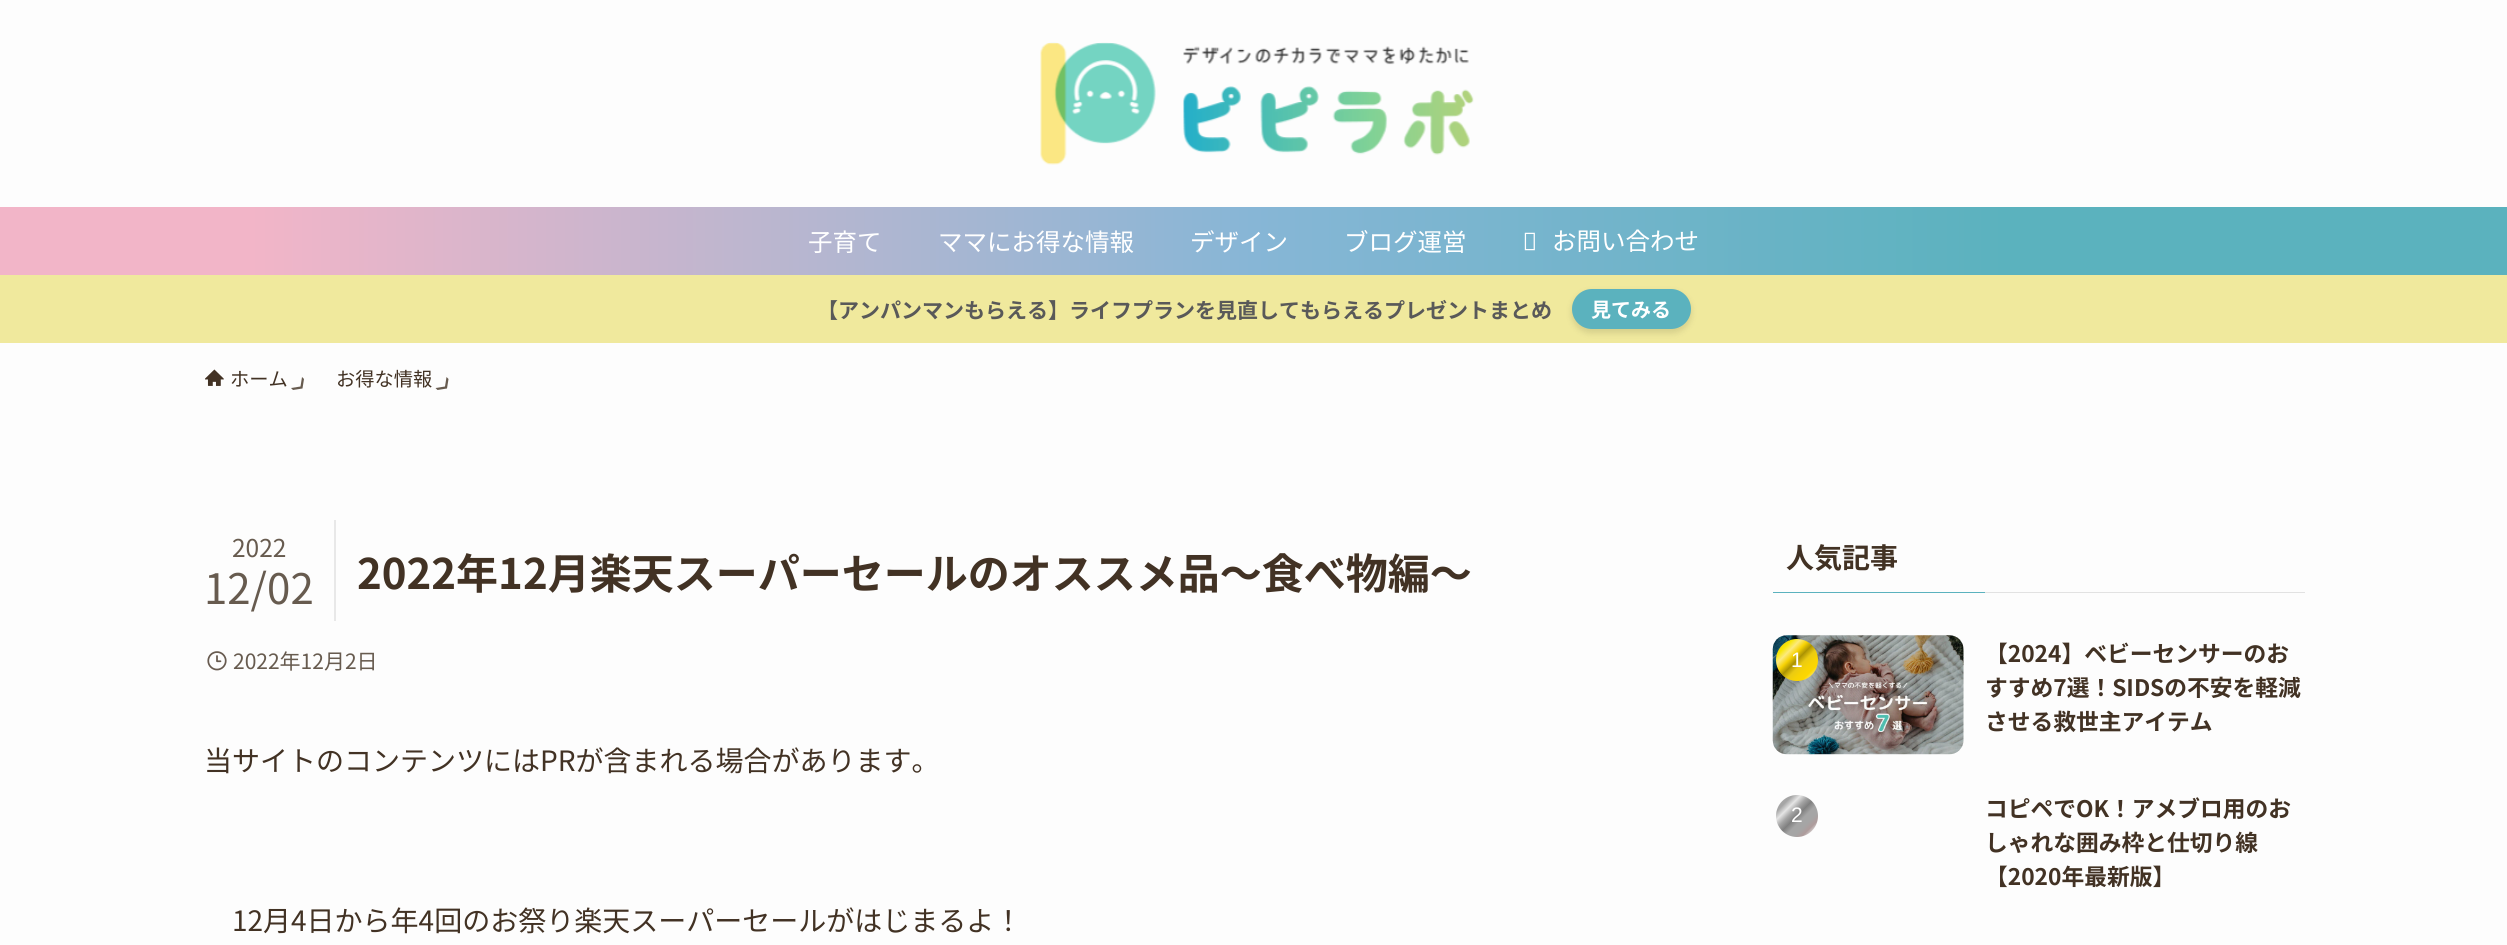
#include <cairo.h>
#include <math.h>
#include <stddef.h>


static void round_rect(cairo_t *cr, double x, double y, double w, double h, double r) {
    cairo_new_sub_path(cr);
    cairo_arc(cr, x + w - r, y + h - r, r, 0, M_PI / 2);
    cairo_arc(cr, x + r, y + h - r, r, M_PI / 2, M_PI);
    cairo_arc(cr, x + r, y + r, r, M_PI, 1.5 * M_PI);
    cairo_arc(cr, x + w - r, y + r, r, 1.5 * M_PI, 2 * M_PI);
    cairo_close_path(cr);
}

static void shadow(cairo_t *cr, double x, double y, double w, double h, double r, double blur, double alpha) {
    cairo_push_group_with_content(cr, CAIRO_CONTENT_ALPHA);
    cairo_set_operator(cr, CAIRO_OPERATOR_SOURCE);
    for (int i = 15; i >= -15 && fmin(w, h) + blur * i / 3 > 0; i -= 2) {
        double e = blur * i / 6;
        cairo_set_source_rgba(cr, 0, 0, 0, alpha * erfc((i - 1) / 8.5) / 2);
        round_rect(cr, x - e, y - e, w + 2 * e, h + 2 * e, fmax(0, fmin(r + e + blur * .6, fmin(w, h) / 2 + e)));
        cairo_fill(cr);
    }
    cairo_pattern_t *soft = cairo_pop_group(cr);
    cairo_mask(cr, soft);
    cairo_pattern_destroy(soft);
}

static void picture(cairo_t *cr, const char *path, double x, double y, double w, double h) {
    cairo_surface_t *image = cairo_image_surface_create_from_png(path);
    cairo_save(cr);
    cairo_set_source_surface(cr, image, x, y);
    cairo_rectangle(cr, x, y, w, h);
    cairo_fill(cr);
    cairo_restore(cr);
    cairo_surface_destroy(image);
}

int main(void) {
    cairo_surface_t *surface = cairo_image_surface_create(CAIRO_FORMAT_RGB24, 2507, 945);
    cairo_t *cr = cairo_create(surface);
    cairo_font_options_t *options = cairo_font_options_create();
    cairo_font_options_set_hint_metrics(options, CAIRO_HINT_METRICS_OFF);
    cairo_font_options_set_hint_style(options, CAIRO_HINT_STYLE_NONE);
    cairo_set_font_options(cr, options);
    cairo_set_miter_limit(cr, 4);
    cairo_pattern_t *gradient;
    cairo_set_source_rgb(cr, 0.992, 0.992, 0.992);
    cairo_paint(cr);
    picture(cr, "img1.png", 1040, 42, 434, 123);
    gradient = cairo_pattern_create_linear(0, 241, 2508, 241);
    cairo_pattern_add_color_stop_rgba(gradient, 0.1, 0.949, 0.71, 0.784, 1);
    cairo_pattern_add_color_stop_rgba(gradient, 0.5, 0.529, 0.714, 0.839, 1);
    cairo_pattern_add_color_stop_rgba(gradient, 0.8, 0.357, 0.698, 0.745, 1);
    cairo_set_source(cr, gradient);
    cairo_pattern_destroy(gradient);
    cairo_rectangle(cr, 0, 207, 2507, 68);
    cairo_fill(cr);
    cairo_select_font_face(cr, "Noto Sans JP", CAIRO_FONT_SLANT_NORMAL, CAIRO_FONT_WEIGHT_NORMAL);
    cairo_set_font_size(cr, 24.5);
    cairo_set_source_rgb(cr, 1, 1, 1);
    cairo_move_to(cr, 808, 251);
    cairo_show_text(cr, "子育て");
    cairo_move_to(cr, 938, 251);
    cairo_show_text(cr, "ママにお得な情報");
    cairo_move_to(cr, 1190, 251);
    cairo_show_text(cr, "デザイン");
    cairo_move_to(cr, 1344, 251);
    cairo_show_text(cr, "ブログ運営");
    picture(cr, "img2.png", 1524, 232, 11, 19);
    cairo_move_to(cr, 1552, 250);
    cairo_show_text(cr, "お問い合わせ");
    cairo_set_source_rgb(cr, 0.941, 0.914, 0.616);
    cairo_rectangle(cr, 0, 275, 2507, 68);
    cairo_fill(cr);
    cairo_select_font_face(cr, "Noto Sans JP", CAIRO_FONT_SLANT_NORMAL, CAIRO_FONT_WEIGHT_BOLD);
    cairo_set_font_size(cr, 21);
    cairo_set_source_rgb(cr, 0.349, 0.349, 0.349);
    cairo_move_to(cr, 817, 318);
    cairo_show_text(cr, "【アンパンマンもらえる】ライフプランを見直してもらえるプレゼントまとめ");
    cairo_set_source_rgb(cr, 0, 0, 0);
    shadow(cr, 1572, 292, 119, 41, 20.5, 3.5, 0.12);
    cairo_set_source_rgb(cr, 0.357, 0.698, 0.745);
    round_rect(cr, 1572, 289, 119, 40, 20);
    cairo_fill(cr);
    cairo_set_font_size(cr, 20);
    cairo_set_source_rgb(cr, 1, 1, 1);
    cairo_move_to(cr, 1591, 317);
    cairo_show_text(cr, "見てみる");
    picture(cr, "img3.png", 205, 369, 19, 17);
    cairo_select_font_face(cr, "Noto Sans JP", CAIRO_FONT_SLANT_NORMAL, CAIRO_FONT_WEIGHT_NORMAL);
    cairo_set_font_size(cr, 19.25);
    cairo_set_source_rgb(cr, 0.259, 0.196, 0.141);
    cairo_move_to(cr, 230, 386);
    cairo_show_text(cr, "ホーム");
    cairo_set_source_rgb(cr, 0.404, 0.357, 0.31);
    cairo_new_path(cr);
    cairo_move_to(cr, 304, 379);
    cairo_line_to(cr, 302, 377);
    cairo_line_to(cr, 300.5, 386.5);
    cairo_line_to(cr, 291, 388);
    cairo_line_to(cr, 293, 390);
    cairo_line_to(cr, 302.5, 388.5);
    cairo_close_path(cr);
    cairo_fill(cr);
    cairo_set_source_rgb(cr, 0.259, 0.196, 0.141);
    cairo_move_to(cr, 336, 386);
    cairo_show_text(cr, "お得な情報");
    cairo_set_source_rgb(cr, 0.404, 0.357, 0.31);
    cairo_new_path(cr);
    cairo_move_to(cr, 448.5, 379);
    cairo_line_to(cr, 446.5, 377);
    cairo_line_to(cr, 445, 386.5);
    cairo_line_to(cr, 435.5, 388);
    cairo_line_to(cr, 437.5, 390);
    cairo_line_to(cr, 447, 388.5);
    cairo_close_path(cr);
    cairo_fill(cr);
    cairo_set_source_rgb(cr, 0.91, 0.91, 0.91);
    cairo_rectangle(cr, 334, 520, 2, 101);
    cairo_fill(cr);
    cairo_set_font_size(cr, 24.5);
    cairo_set_source_rgb(cr, 0.404, 0.357, 0.31);
    cairo_move_to(cr, 232, 557);
    cairo_show_text(cr, "2022");
    cairo_set_font_size(cr, 42);
    cairo_move_to(cr, 204, 604);
    cairo_show_text(cr, "12/02");
    cairo_select_font_face(cr, "Noto Sans JP", CAIRO_FONT_SLANT_NORMAL, CAIRO_FONT_WEIGHT_BOLD);
    cairo_set_source_rgb(cr, 0.259, 0.196, 0.141);
    cairo_move_to(cr, 357, 589);
    cairo_show_text(cr, "2022年12月楽天スーパーセールのオススメ品～食べ物編～");
    picture(cr, "img4.png", 207, 651, 20, 20);
    cairo_select_font_face(cr, "Noto Sans JP", CAIRO_FONT_SLANT_NORMAL, CAIRO_FONT_WEIGHT_NORMAL);
    cairo_set_font_size(cr, 21);
    cairo_set_source_rgb(cr, 0.404, 0.357, 0.31);
    cairo_move_to(cr, 233, 669);
    cairo_show_text(cr, "2022年12月2日");
    cairo_set_font_size(cr, 28);
    cairo_set_source_rgb(cr, 0.259, 0.196, 0.141);
    cairo_move_to(cr, 204, 771);
    cairo_show_text(cr, "当サイトのコンテンツにはPRが含まれる場合があります。");
    cairo_move_to(cr, 232, 931);
    cairo_show_text(cr, "12月4日から年4回のお祭り楽天スーパーセールがはじまるよ！");
    cairo_select_font_face(cr, "Noto Sans JP", CAIRO_FONT_SLANT_NORMAL, CAIRO_FONT_WEIGHT_BOLD);
    cairo_move_to(cr, 1786, 568);
    cairo_show_text(cr, "人気記事");
    cairo_set_source_rgb(cr, 0.357, 0.698, 0.745);
    cairo_rectangle(cr, 1773, 592, 212, 1);
    cairo_fill(cr);
    cairo_set_source_rgb(cr, 0.886, 0.886, 0.886);
    cairo_rectangle(cr, 1985, 592, 320, 1);
    cairo_fill(cr);
    picture(cr, "img5.png", 1772, 635, 192, 120);
    gradient = cairo_pattern_create_linear(1818, 681, 1776, 639);
    cairo_pattern_add_color_stop_rgba(gradient, 0, 0.969, 0.749, 0.02, 1);
    cairo_pattern_add_color_stop_rgba(gradient, 0.1, 0.988, 0.918, 0.498, 1);
    cairo_pattern_add_color_stop_rgba(gradient, 0.2, 0.988, 0.843, 0, 1);
    cairo_pattern_add_color_stop_rgba(gradient, 0.3, 0.969, 0.827, 0.02, 1);
    cairo_pattern_add_color_stop_rgba(gradient, 0.4, 0.918, 0.792, 0.071, 1);
    cairo_pattern_add_color_stop_rgba(gradient, 0.5, 0.675, 0.576, 0.012, 1);
    cairo_pattern_add_color_stop_rgba(gradient, 0.6, 0.969, 0.827, 0.02, 1);
    cairo_pattern_add_color_stop_rgba(gradient, 0.7, 0.988, 0.918, 0.498, 1);
    cairo_pattern_add_color_stop_rgba(gradient, 0.8, 0.969, 0.906, 0.02, 1);
    cairo_pattern_add_color_stop_rgba(gradient, 0.9, 0.918, 0.792, 0.071, 1);
    cairo_pattern_add_color_stop_rgba(gradient, 1, 0.969, 0.749, 0.02, 1);
    cairo_set_source(cr, gradient);
    cairo_pattern_destroy(gradient);
    cairo_arc(cr, 1797, 660, 21, 0, 2 * M_PI);
    cairo_fill(cr);
    cairo_select_font_face(cr, "Liberation Sans", CAIRO_FONT_SLANT_NORMAL, CAIRO_FONT_WEIGHT_NORMAL);
    cairo_set_font_size(cr, 21);
    cairo_set_source_rgb(cr, 1, 1, 1);
    cairo_move_to(cr, 1791, 667);
    cairo_show_text(cr, "1");
    cairo_select_font_face(cr, "Noto Sans JP", CAIRO_FONT_SLANT_NORMAL, CAIRO_FONT_WEIGHT_BOLD);
    cairo_set_font_size(cr, 22.75);
    cairo_set_source_rgb(cr, 0.259, 0.196, 0.141);
    cairo_move_to(cr, 1985, 662);
    cairo_show_text(cr, "【2024】ベビーセンサーのお");
    cairo_move_to(cr, 1985, 696);
    cairo_show_text(cr, "すすめ7選！SIDSの不安を軽減");
    cairo_move_to(cr, 1985, 730);
    cairo_show_text(cr, "させる救世主アイテム");
    gradient = cairo_pattern_create_linear(1818, 837, 1776, 795);
    cairo_pattern_add_color_stop_rgba(gradient, 0, 0.647, 0.647, 0.647, 1);
    cairo_pattern_add_color_stop_rgba(gradient, 0.1, 0.898, 0.898, 0.898, 1);
    cairo_pattern_add_color_stop_rgba(gradient, 0.2, 0.682, 0.612, 0.612, 1);
    cairo_pattern_add_color_stop_rgba(gradient, 0.3, 0.647, 0.647, 0.647, 1);
    cairo_pattern_add_color_stop_rgba(gradient, 0.4, 0.647, 0.647, 0.647, 1);
    cairo_pattern_add_color_stop_rgba(gradient, 0.5, 0.498, 0.498, 0.498, 1);
    cairo_pattern_add_color_stop_rgba(gradient, 0.6, 0.647, 0.647, 0.647, 1);
    cairo_pattern_add_color_stop_rgba(gradient, 0.7, 0.898, 0.898, 0.898, 1);
    cairo_pattern_add_color_stop_rgba(gradient, 0.8, 0.647, 0.647, 0.647, 1);
    cairo_pattern_add_color_stop_rgba(gradient, 1, 0.647, 0.647, 0.647, 1);
    cairo_set_source(cr, gradient);
    cairo_pattern_destroy(gradient);
    cairo_new_path(cr);
    cairo_arc(cr, 1797, 816, 21, 0, 2 * M_PI);
    cairo_fill(cr);
    cairo_select_font_face(cr, "Liberation Sans", CAIRO_FONT_SLANT_NORMAL, CAIRO_FONT_WEIGHT_NORMAL);
    cairo_set_font_size(cr, 21);
    cairo_set_source_rgb(cr, 1, 1, 1);
    cairo_move_to(cr, 1791, 822);
    cairo_show_text(cr, "2");
    cairo_select_font_face(cr, "Noto Sans JP", CAIRO_FONT_SLANT_NORMAL, CAIRO_FONT_WEIGHT_BOLD);
    cairo_set_font_size(cr, 22.75);
    cairo_set_source_rgb(cr, 0.259, 0.196, 0.141);
    cairo_move_to(cr, 1985, 817);
    cairo_show_text(cr, "コピペでOK！アメブロ用のお");
    cairo_move_to(cr, 1985, 851);
    cairo_show_text(cr, "しゃれな囲み枠と仕切り線");
    cairo_move_to(cr, 1985, 885);
    cairo_show_text(cr, "【2020年最新版】");
    cairo_surface_write_to_png(surface, "page.png");
    cairo_font_options_destroy(options);
    cairo_destroy(cr);
    cairo_surface_destroy(surface);
    return 0;
}
